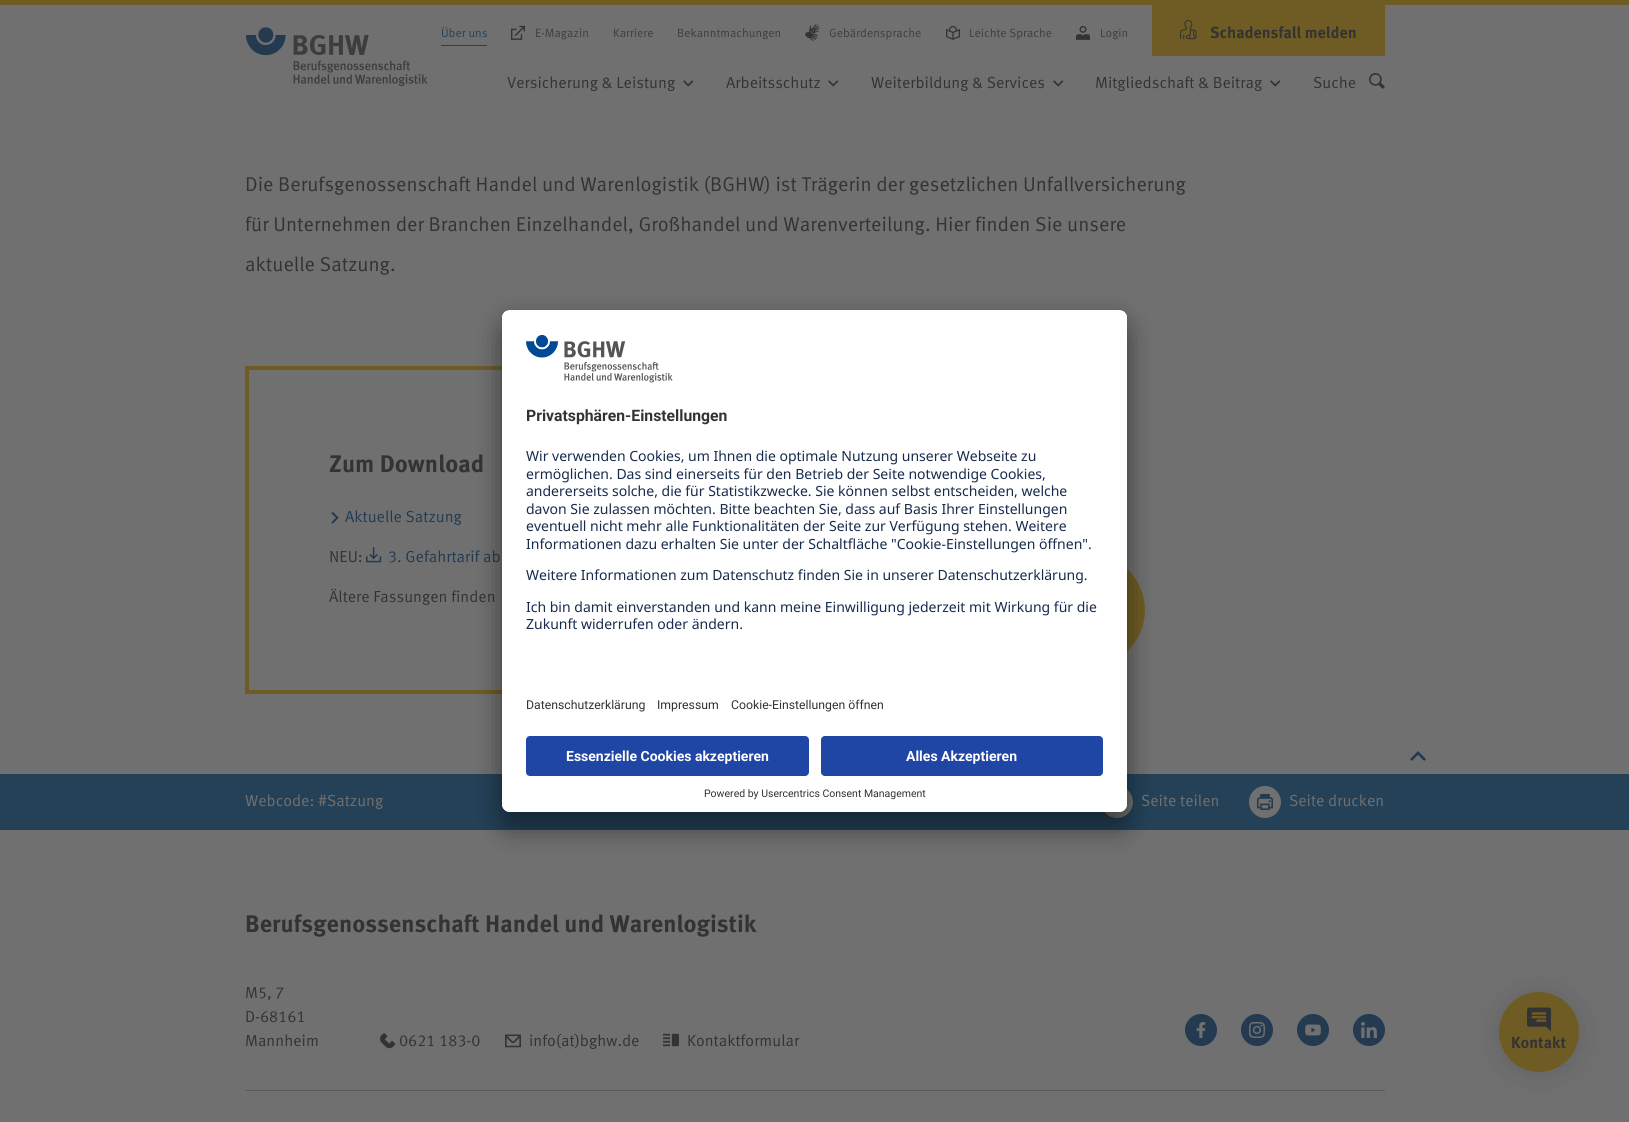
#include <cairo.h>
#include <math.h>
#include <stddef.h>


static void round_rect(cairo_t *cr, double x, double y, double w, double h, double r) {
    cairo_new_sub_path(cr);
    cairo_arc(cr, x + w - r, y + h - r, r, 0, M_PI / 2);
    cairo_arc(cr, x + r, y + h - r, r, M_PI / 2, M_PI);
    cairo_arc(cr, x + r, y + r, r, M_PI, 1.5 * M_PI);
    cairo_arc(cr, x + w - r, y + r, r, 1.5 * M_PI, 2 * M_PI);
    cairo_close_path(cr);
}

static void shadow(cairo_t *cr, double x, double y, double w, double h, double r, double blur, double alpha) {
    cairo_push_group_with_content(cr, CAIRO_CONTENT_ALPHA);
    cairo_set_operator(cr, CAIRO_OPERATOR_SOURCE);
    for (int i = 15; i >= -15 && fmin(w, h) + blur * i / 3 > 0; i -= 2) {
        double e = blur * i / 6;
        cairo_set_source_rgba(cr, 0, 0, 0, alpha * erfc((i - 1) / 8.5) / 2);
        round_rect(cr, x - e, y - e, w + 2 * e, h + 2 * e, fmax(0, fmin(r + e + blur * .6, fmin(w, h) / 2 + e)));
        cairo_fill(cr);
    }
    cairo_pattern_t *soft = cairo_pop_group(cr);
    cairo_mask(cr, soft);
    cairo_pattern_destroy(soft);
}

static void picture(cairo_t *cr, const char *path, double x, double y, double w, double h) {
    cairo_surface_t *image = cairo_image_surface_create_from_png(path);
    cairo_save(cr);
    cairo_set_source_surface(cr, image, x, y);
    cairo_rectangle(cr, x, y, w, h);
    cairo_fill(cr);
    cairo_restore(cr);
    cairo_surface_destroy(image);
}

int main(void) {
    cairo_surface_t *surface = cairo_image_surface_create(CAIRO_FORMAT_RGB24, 1629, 1122);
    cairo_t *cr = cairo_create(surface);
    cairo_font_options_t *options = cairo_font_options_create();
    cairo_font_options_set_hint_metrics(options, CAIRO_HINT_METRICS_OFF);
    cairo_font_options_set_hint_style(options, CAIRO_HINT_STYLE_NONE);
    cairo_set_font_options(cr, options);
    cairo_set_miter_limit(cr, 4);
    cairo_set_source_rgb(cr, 0.439, 0.439, 0.439);
    cairo_paint(cr);
    cairo_set_source_rgb(cr, 0.435, 0.361, 0.141);
    cairo_rectangle(cr, 0, 0, 1629, 5);
    cairo_fill(cr);
    picture(cr, "img1.png", 246, 27, 182, 59);
    cairo_set_source_rgb(cr, 0.141, 0.255, 0.345);
    cairo_rectangle(cr, 441, 45, 46, 1);
    cairo_fill(cr);
    cairo_select_font_face(cr, "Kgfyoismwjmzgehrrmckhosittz", CAIRO_FONT_SLANT_NORMAL, CAIRO_FONT_WEIGHT_NORMAL);
    cairo_set_font_size(cr, 12);
    cairo_move_to(cr, 441, 37);
    cairo_show_text(cr, "Über uns");
    picture(cr, "img2.png", 511, 25, 14, 15);
    cairo_set_source_rgb(cr, 0.243, 0.243, 0.243);
    cairo_move_to(cr, 535, 37);
    cairo_show_text(cr, "E-Magazin");
    cairo_move_to(cr, 613, 37);
    cairo_show_text(cr, "Karriere");
    cairo_move_to(cr, 677, 37);
    cairo_show_text(cr, "Bekanntmachungen");
    picture(cr, "img3.png", 805, 24, 15, 17);
    cairo_move_to(cr, 829, 37);
    cairo_show_text(cr, "Gebärdensprache");
    picture(cr, "img4.png", 946, 25, 14, 15);
    cairo_move_to(cr, 969, 37);
    cairo_show_text(cr, "Leichte Sprache");
    picture(cr, "img5.png", 1076, 25, 14, 15);
    cairo_move_to(cr, 1100, 37);
    cairo_show_text(cr, "Login");
    cairo_set_source_rgb(cr, 0.435, 0.361, 0.141);
    cairo_rectangle(cr, 1152, 5, 233, 51);
    cairo_fill(cr);
    picture(cr, "img6.png", 1180, 20, 17, 20);
    cairo_select_font_face(cr, "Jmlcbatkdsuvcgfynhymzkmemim", CAIRO_FONT_SLANT_NORMAL, CAIRO_FONT_WEIGHT_BOLD);
    cairo_set_font_size(cr, 16);
    cairo_set_source_rgb(cr, 0.2, 0.2, 0.2);
    cairo_move_to(cr, 1210, 38);
    cairo_show_text(cr, "Schadensfall melden");
    cairo_select_font_face(cr, "Kgfyoismwjmzgehrrmckhosittz", CAIRO_FONT_SLANT_NORMAL, CAIRO_FONT_WEIGHT_NORMAL);
    cairo_move_to(cr, 507, 88);
    cairo_show_text(cr, "Versicherung & Leistung");
    picture(cr, "img7.png", 683, 80, 11, 7);
    cairo_move_to(cr, 726, 88);
    cairo_show_text(cr, "Arbeitsschutz");
    picture(cr, "img7.png", 828, 80, 11, 7);
    cairo_move_to(cr, 871, 88);
    cairo_show_text(cr, "Weiterbildung & Services");
    picture(cr, "img7.png", 1053, 80, 11, 7);
    cairo_move_to(cr, 1095, 88);
    cairo_show_text(cr, "Mitgliedschaft & Beitrag");
    picture(cr, "img7.png", 1270, 80, 11, 7);
    cairo_move_to(cr, 1313, 88);
    cairo_show_text(cr, "Suche");
    picture(cr, "img8.png", 1369, 73, 16, 16);
    cairo_set_font_size(cr, 20);
    cairo_move_to(cr, 245, 191);
    cairo_show_text(cr, "Die Berufsgenossenschaft Handel und Warenlogistik (BGHW) ist Trägerin der gesetzlichen Unfallversicherung");
    cairo_move_to(cr, 245, 231);
    cairo_show_text(cr, "für Unternehmen der Branchen Einzelhandel, Großhandel und Warenverteilung. Hier finden Sie unsere");
    cairo_move_to(cr, 245, 271);
    cairo_show_text(cr, "aktuelle Satzung.");
    cairo_rectangle(cr, 247, 368, 844, 324);
    cairo_set_source_rgb(cr, 0.435, 0.361, 0.141);
    cairo_set_line_width(cr, 4);
    cairo_stroke(cr);
    cairo_select_font_face(cr, "Jmlcbatkdsuvcgfynhymzkmemim", CAIRO_FONT_SLANT_NORMAL, CAIRO_FONT_WEIGHT_BOLD);
    cairo_set_font_size(cr, 24);
    cairo_set_source_rgb(cr, 0.2, 0.2, 0.2);
    cairo_move_to(cr, 329, 472);
    cairo_show_text(cr, "Zum Download");
    picture(cr, "img9.png", 331, 511, 8, 13);
    cairo_select_font_face(cr, "Kgfyoismwjmzgehrrmckhosittz", CAIRO_FONT_SLANT_NORMAL, CAIRO_FONT_WEIGHT_NORMAL);
    cairo_set_font_size(cr, 16);
    cairo_set_source_rgb(cr, 0.141, 0.227, 0.314);
    cairo_move_to(cr, 345, 522);
    cairo_show_text(cr, "Aktuelle Satzung");
    cairo_set_source_rgb(cr, 0.2, 0.2, 0.2);
    cairo_move_to(cr, 329, 562);
    cairo_show_text(cr, "NEU:");
    picture(cr, "img10.png", 366, 547, 16, 16);
    cairo_set_source_rgb(cr, 0.141, 0.227, 0.314);
    cairo_move_to(cr, 388, 562);
    cairo_show_text(cr, "3. Gefahrtarif ab");
    cairo_set_source_rgb(cr, 0.2, 0.2, 0.2);
    cairo_move_to(cr, 329, 602);
    cairo_show_text(cr, "Ältere Fassungen finden");
    cairo_set_source_rgb(cr, 0.435, 0.361, 0.141);
    cairo_new_path(cr);
    cairo_arc(cr, 1089, 610, 58, 0, 2 * M_PI);
    cairo_fill_preserve(cr);
    cairo_set_source_rgb(cr, 0.439, 0.439, 0.439);
    cairo_stroke(cr);
    cairo_set_source_rgb(cr, 0.141, 0.255, 0.345);
    cairo_rectangle(cr, 0, 774, 1629, 56);
    cairo_fill(cr);
    cairo_set_source_rgb(cr, 0.439, 0.439, 0.439);
    cairo_arc(cr, 1117, 802, 16, 0, 2 * M_PI);
    cairo_fill(cr);
    cairo_set_source_rgb(cr, 0, 0, 0);
    shadow(cr, 502, 330, 625, 502, 8, 14, 0.3);
    shadow(cr, 502, 315, 625, 502, 8, 13, 0.22);
    cairo_set_source_rgb(cr, 1, 1, 1);
    round_rect(cr, 502, 310, 625, 502, 8);
    cairo_fill(cr);
    cairo_save(cr);
    round_rect(cr, 502, 310, 625, 502, 8);
    cairo_clip(cr);
    cairo_new_path(cr);
    cairo_move_to(cr, 510, 310);
    cairo_line_to(cr, 1119, 310);
    cairo_curve_to(cr, 1123.5, 310, 1127, 313.5, 1127, 318);
    cairo_line_to(cr, 1127, 728);
    cairo_line_to(cr, 502, 728);
    cairo_line_to(cr, 502, 318);
    cairo_curve_to(cr, 502, 313.5, 505.5, 310, 510, 310);
    cairo_close_path(cr);
    cairo_clip(cr);
    cairo_rectangle(cr, 502, 311, 625, 417);
    cairo_fill(cr);
    cairo_restore(cr);
    picture(cr, "img11.png", 526, 335, 147, 48);
    cairo_select_font_face(cr, "Roboto", CAIRO_FONT_SLANT_NORMAL, CAIRO_FONT_WEIGHT_BOLD);
    cairo_set_font_size(cr, 15.75);
    cairo_set_source_rgb(cr, 0.2, 0.2, 0.2);
    cairo_move_to(cr, 526, 421);
    cairo_show_text(cr, "Privatsphären-Einstellungen");
    cairo_select_font_face(cr, "Noto Sans", CAIRO_FONT_SLANT_NORMAL, CAIRO_FONT_WEIGHT_NORMAL);
    cairo_set_font_size(cr, 14);
    cairo_set_source_rgb(cr, 0.09, 0.169, 0.302);
    cairo_move_to(cr, 526, 461);
    cairo_show_text(cr, "Wir verwenden Cookies, um Ihnen die optimale Nutzung unserer Webseite zu");
    cairo_move_to(cr, 526, 479);
    cairo_show_text(cr, "ermöglichen. Das sind einerseits für den Betrieb der Seite notwendige Cookies,");
    cairo_move_to(cr, 526, 496);
    cairo_show_text(cr, "andererseits solche, die für Statistikzwecke. Sie können selbst entscheiden, welche");
    cairo_move_to(cr, 526, 514);
    cairo_show_text(cr, "davon Sie zulassen möchten. Bitte beachten Sie, dass auf Basis Ihrer Einstellungen");
    cairo_move_to(cr, 526, 531);
    cairo_show_text(cr, "eventuell nicht mehr alle Funktionalitäten der Seite zur Verfügung stehen. Weitere");
    cairo_move_to(cr, 526, 549);
    cairo_show_text(cr, "Informationen dazu erhalten Sie unter der Schaltfläche \"Cookie-Einstellungen öffnen\".");
    cairo_move_to(cr, 526, 580);
    cairo_show_text(cr, "Weitere Informationen zum Datenschutz finden Sie in unserer Datenschutzerklärung.");
    cairo_move_to(cr, 526, 612);
    cairo_show_text(cr, "Ich bin damit einverstanden und kann meine Einwilligung jederzeit mit Wirkung für die");
    cairo_move_to(cr, 526, 629);
    cairo_show_text(cr, "Zukunft widerrufen oder ändern.");
    cairo_select_font_face(cr, "Roboto", CAIRO_FONT_SLANT_NORMAL, CAIRO_FONT_WEIGHT_NORMAL);
    cairo_set_font_size(cr, 12.25);
    cairo_set_source_rgb(cr, 0.2, 0.2, 0.2);
    cairo_move_to(cr, 526, 709);
    cairo_show_text(cr, "Datenschutzerklärung");
    cairo_move_to(cr, 657, 709);
    cairo_show_text(cr, "Impressum");
    cairo_move_to(cr, 731, 709);
    cairo_show_text(cr, "Cookie-Einstellungen öffnen");
    cairo_set_source_rgb(cr, 1, 1, 1);
    cairo_new_path(cr);
    cairo_move_to(cr, 502, 728);
    cairo_line_to(cr, 1127, 728);
    cairo_line_to(cr, 1127, 804);
    cairo_curve_to(cr, 1127, 808.5, 1123.5, 812, 1119, 812);
    cairo_line_to(cr, 510, 812);
    cairo_curve_to(cr, 505.5, 812, 502, 808.5, 502, 804);
    cairo_close_path(cr);
    cairo_fill(cr);
    cairo_set_source_rgb(cr, 0.122, 0.271, 0.647);
    round_rect(cr, 526, 736, 283, 40, 4);
    cairo_fill(cr);
    cairo_select_font_face(cr, "Roboto", CAIRO_FONT_SLANT_NORMAL, CAIRO_FONT_WEIGHT_BOLD);
    cairo_set_font_size(cr, 14);
    cairo_set_source_rgb(cr, 1, 1, 1);
    cairo_move_to(cr, 566, 761);
    cairo_show_text(cr, "Essenzielle Cookies akzeptieren");
    cairo_set_source_rgb(cr, 0.122, 0.271, 0.647);
    round_rect(cr, 821, 736, 282, 40, 4);
    cairo_fill(cr);
    cairo_set_source_rgb(cr, 1, 1, 1);
    cairo_move_to(cr, 906, 761);
    cairo_show_text(cr, "Alles Akzeptieren");
    cairo_select_font_face(cr, "Roboto", CAIRO_FONT_SLANT_NORMAL, CAIRO_FONT_WEIGHT_NORMAL);
    cairo_set_font_size(cr, 10.5);
    cairo_set_source_rgb(cr, 0.2, 0.2, 0.2);
    cairo_move_to(cr, 704, 797);
    cairo_show_text(cr, "Powered by Usercentrics Consent Management");
    picture(cr, "img12.png", 1410, 751, 16, 10);
    cairo_select_font_face(cr, "Kgfyoismwjmzgehrrmckhosittz", CAIRO_FONT_SLANT_NORMAL, CAIRO_FONT_WEIGHT_NORMAL);
    cairo_set_font_size(cr, 16);
    cairo_set_source_rgb(cr, 0.439, 0.439, 0.439);
    cairo_move_to(cr, 245, 806);
    cairo_show_text(cr, "Webcode: #Satzung");
    cairo_move_to(cr, 1141, 806);
    cairo_show_text(cr, "Seite teilen");
    cairo_new_path(cr);
    cairo_arc(cr, 1265, 802, 16, 0, 2 * M_PI);
    cairo_fill(cr);
    picture(cr, "img13.png", 1257, 794, 16, 16);
    cairo_move_to(cr, 1289, 806);
    cairo_show_text(cr, "Seite drucken");
    cairo_select_font_face(cr, "Jmlcbatkdsuvcgfynhymzkmemim", CAIRO_FONT_SLANT_NORMAL, CAIRO_FONT_WEIGHT_BOLD);
    cairo_set_font_size(cr, 24);
    cairo_set_source_rgb(cr, 0.2, 0.2, 0.2);
    cairo_move_to(cr, 245, 932);
    cairo_show_text(cr, "Berufsgenossenschaft Handel und Warenlogistik");
    cairo_select_font_face(cr, "Kgfyoismwjmzgehrrmckhosittz", CAIRO_FONT_SLANT_NORMAL, CAIRO_FONT_WEIGHT_NORMAL);
    cairo_set_font_size(cr, 16);
    cairo_move_to(cr, 245, 998);
    cairo_show_text(cr, "M5, 7");
    cairo_move_to(cr, 245, 1022);
    cairo_show_text(cr, "D-68161");
    cairo_move_to(cr, 245, 1046);
    cairo_show_text(cr, "Mannheim");
    picture(cr, "img14.png", 380, 1033, 16, 16);
    cairo_move_to(cr, 399, 1046);
    cairo_show_text(cr, "0621 183-0");
    picture(cr, "img15.png", 505, 1034, 16, 14);
    cairo_move_to(cr, 529, 1046);
    cairo_show_text(cr, "info(at)bghw.de");
    picture(cr, "img16.png", 663, 1033, 16, 14);
    cairo_move_to(cr, 687, 1046);
    cairo_show_text(cr, "Kontaktformular");
    cairo_set_source_rgb(cr, 0.141, 0.227, 0.314);
    cairo_new_path(cr);
    cairo_arc(cr, 1201, 1030, 16, 0, 2 * M_PI);
    cairo_fill(cr);
    picture(cr, "img17.png", 1196, 1022, 10, 16);
    cairo_arc(cr, 1257, 1030, 16, 0, 2 * M_PI);
    cairo_fill(cr);
    picture(cr, "img18.png", 1249, 1022, 16, 16);
    cairo_arc(cr, 1313, 1030, 16, 0, 2 * M_PI);
    cairo_fill(cr);
    picture(cr, "img19.png", 1305, 1024, 16, 12);
    cairo_arc(cr, 1369, 1030, 16, 0, 2 * M_PI);
    cairo_fill(cr);
    picture(cr, "img20.png", 1361, 1022, 16, 16);
    cairo_set_source_rgb(cr, 0.349, 0.349, 0.349);
    cairo_rectangle(cr, 245, 1090, 1140, 1);
    cairo_fill(cr);
    cairo_set_source_rgb(cr, 0.141, 0.141, 0.141);
    shadow(cr, 1499, 994, 80, 80, 40, 14.5, 0.2);
    cairo_set_source_rgb(cr, 0.435, 0.361, 0.141);
    cairo_arc(cr, 1539, 1032, 40, 0, 2 * M_PI);
    cairo_fill(cr);
    picture(cr, "img21.png", 1527, 1007, 24, 25);
    cairo_select_font_face(cr, "Jmlcbatkdsuvcgfynhymzkmemim", CAIRO_FONT_SLANT_NORMAL, CAIRO_FONT_WEIGHT_BOLD);
    cairo_set_source_rgb(cr, 0.2, 0.2, 0.2);
    cairo_move_to(cr, 1511, 1048);
    cairo_show_text(cr, "Kontakt");
    cairo_surface_write_to_png(surface, "page.png");
    cairo_font_options_destroy(options);
    cairo_destroy(cr);
    cairo_surface_destroy(surface);
    return 0;
}
